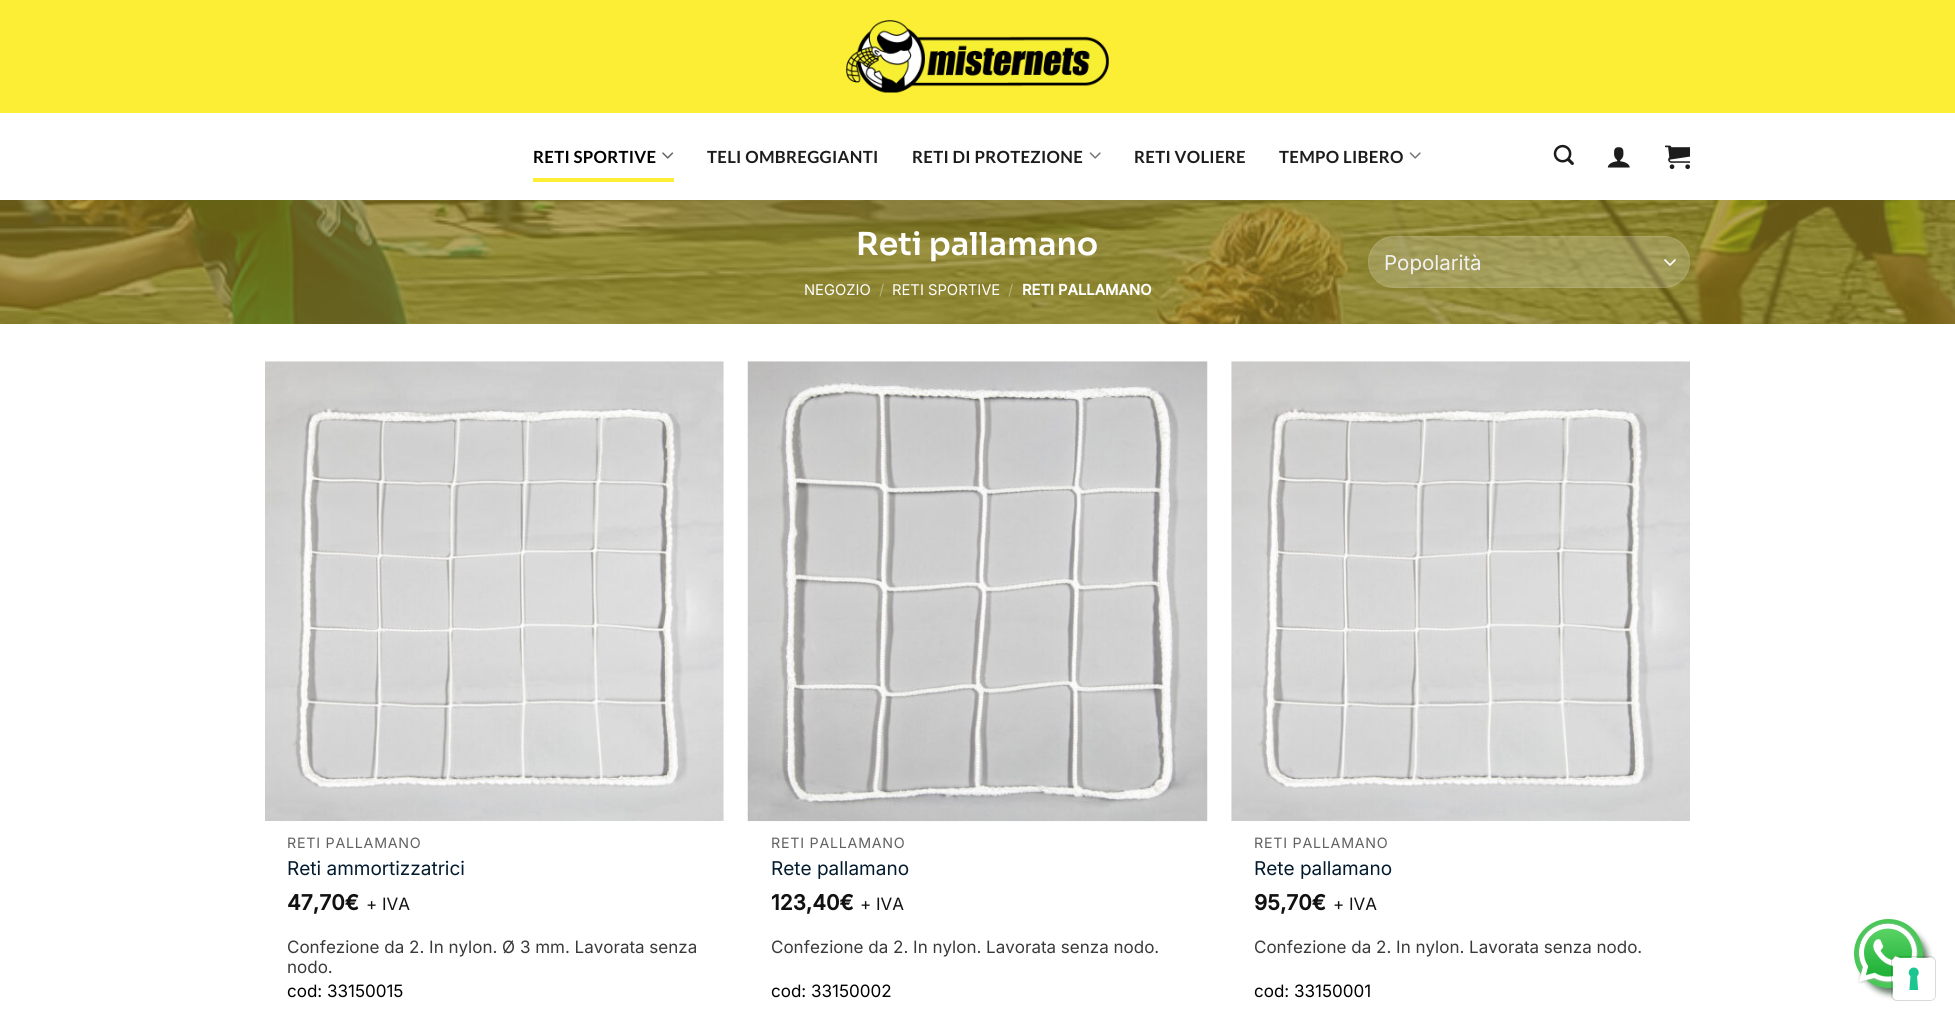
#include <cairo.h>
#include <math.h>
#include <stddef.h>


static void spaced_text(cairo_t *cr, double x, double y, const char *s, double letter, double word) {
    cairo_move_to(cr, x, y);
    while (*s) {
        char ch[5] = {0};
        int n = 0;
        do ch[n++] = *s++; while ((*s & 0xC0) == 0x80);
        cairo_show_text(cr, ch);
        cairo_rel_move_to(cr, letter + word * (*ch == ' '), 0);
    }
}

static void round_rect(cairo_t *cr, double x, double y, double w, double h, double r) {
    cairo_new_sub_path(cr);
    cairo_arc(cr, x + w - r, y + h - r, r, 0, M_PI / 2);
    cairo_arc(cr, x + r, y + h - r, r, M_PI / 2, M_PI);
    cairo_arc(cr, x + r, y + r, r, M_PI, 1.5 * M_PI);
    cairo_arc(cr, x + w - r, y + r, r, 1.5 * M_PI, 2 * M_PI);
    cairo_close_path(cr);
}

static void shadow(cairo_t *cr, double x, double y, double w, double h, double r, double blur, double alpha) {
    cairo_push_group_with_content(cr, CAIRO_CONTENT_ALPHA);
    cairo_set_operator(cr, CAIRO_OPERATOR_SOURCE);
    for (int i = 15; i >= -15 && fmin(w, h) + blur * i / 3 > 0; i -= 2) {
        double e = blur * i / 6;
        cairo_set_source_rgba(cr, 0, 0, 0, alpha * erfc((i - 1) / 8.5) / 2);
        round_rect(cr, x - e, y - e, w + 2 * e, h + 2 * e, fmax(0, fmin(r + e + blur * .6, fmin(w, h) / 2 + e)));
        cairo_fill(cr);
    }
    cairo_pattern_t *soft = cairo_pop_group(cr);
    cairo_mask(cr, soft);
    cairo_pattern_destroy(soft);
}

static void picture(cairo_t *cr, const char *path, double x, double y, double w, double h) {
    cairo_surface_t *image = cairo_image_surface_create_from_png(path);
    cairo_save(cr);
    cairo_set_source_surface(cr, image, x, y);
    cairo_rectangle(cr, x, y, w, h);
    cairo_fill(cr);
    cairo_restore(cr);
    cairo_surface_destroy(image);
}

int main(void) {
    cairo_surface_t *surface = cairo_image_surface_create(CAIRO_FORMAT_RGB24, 1955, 1020);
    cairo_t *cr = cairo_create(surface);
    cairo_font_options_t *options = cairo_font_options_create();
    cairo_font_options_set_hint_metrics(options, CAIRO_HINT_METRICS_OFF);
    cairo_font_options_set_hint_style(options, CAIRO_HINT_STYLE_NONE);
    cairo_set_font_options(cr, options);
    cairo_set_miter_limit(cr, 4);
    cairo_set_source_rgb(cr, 1, 1, 1);
    cairo_paint(cr);
    cairo_set_source_rgb(cr, 0.984, 0.933, 0.204);
    cairo_rectangle(cr, 0, 0, 1955, 113);
    cairo_fill(cr);
    picture(cr, "img1.png", 846, 20, 263, 73);
    cairo_select_font_face(cr, "Lato", CAIRO_FONT_SLANT_NORMAL, CAIRO_FONT_WEIGHT_BOLD);
    cairo_set_font_size(cr, 16.75);
    cairo_set_source_rgb(cr, 0, 0, 0);
    spaced_text(cr, 533, 163, "RETI SPORTIVE", 0.3, 0);
    picture(cr, "img2.png", 662, 152, 12, 7);
    cairo_set_source_rgb(cr, 0.984, 0.933, 0.204);
    cairo_rectangle(cr, 533, 178, 141, 4);
    cairo_fill(cr);
    cairo_set_source_rgb(cr, 0.11, 0.11, 0.11);
    spaced_text(cr, 707, 163, "TELI OMBREGGIANTI", 0.3, 0);
    spaced_text(cr, 912, 163, "RETI DI PROTEZIONE", 0.3, 0);
    picture(cr, "img3.png", 1089, 152, 12, 7);
    spaced_text(cr, 1134, 163, "RETI VOLIERE", 0.3, 0);
    spaced_text(cr, 1279, 163, "TEMPO LIBERO", 0.3, 0);
    picture(cr, "img3.png", 1409, 152, 12, 7);
    picture(cr, "img4.png", 1553, 144, 21, 21);
    picture(cr, "img5.png", 1607, 147, 23, 21);
    picture(cr, "img6.png", 1665, 145, 25, 24);
    picture(cr, "img7.png", 0, 200, 1955, 124);
    cairo_select_font_face(cr, "Sora SemiBold", CAIRO_FONT_SLANT_NORMAL, CAIRO_FONT_WEIGHT_NORMAL);
    cairo_set_font_size(cr, 31.5);
    cairo_set_source_rgb(cr, 1, 1, 1);
    cairo_move_to(cr, 856, 255);
    cairo_show_text(cr, "Reti pallamano");
    cairo_select_font_face(cr, "Inter", CAIRO_FONT_SLANT_NORMAL, CAIRO_FONT_WEIGHT_NORMAL);
    cairo_set_font_size(cr, 14.75);
    cairo_move_to(cr, 804, 295);
    cairo_show_text(cr, "NEGOZIO");
    cairo_set_source_rgb(cr, 0.71, 0.69, 0.478);
    cairo_move_to(cr, 879, 295);
    cairo_show_text(cr, "/");
    cairo_set_source_rgb(cr, 1, 1, 1);
    cairo_move_to(cr, 892, 295);
    cairo_show_text(cr, "RETI SPORTIVE");
    cairo_set_source_rgb(cr, 0.71, 0.69, 0.478);
    cairo_move_to(cr, 1008, 295);
    cairo_show_text(cr, "/");
    cairo_select_font_face(cr, "Inter", CAIRO_FONT_SLANT_NORMAL, CAIRO_FONT_WEIGHT_BOLD);
    cairo_set_source_rgb(cr, 1, 1, 1);
    cairo_move_to(cr, 1022, 295);
    cairo_show_text(cr, "RETI PALLAMANO");
    cairo_set_source_rgba(cr, 1, 1, 1, 0.2);
    round_rect(cr, 1368, 236, 322, 52, 26);
    cairo_fill(cr);
    cairo_new_path(cr);
    cairo_move_to(cr, 1665, 260);
    cairo_line_to(cr, 1670, 265);
    cairo_line_to(cr, 1675, 260);
    cairo_set_source_rgb(cr, 1, 1, 1);
    cairo_set_line_width(cr, 1.7);
    cairo_set_line_cap(cr, CAIRO_LINE_CAP_ROUND);
    cairo_set_line_join(cr, CAIRO_LINE_JOIN_ROUND);
    cairo_stroke(cr);
    round_rect(cr, 1368.5, 236.5, 321, 51, 25.5);
    cairo_set_source_rgba(cr, 1, 1, 1, 0.09);
    cairo_set_line_width(cr, 1);
    cairo_set_line_cap(cr, CAIRO_LINE_CAP_BUTT);
    cairo_set_line_join(cr, CAIRO_LINE_JOIN_MITER);
    cairo_stroke(cr);
    cairo_select_font_face(cr, "Inter", CAIRO_FONT_SLANT_NORMAL, CAIRO_FONT_WEIGHT_NORMAL);
    cairo_set_font_size(cr, 20.5);
    cairo_set_source_rgb(cr, 0.945, 0.945, 0.945);
    cairo_move_to(cr, 1384, 270);
    cairo_show_text(cr, "Popolarità");
    picture(cr, "img8.png", 265, 361, 459, 460);
    cairo_set_font_size(cr, 14.25);
    cairo_set_source_rgb(cr, 0.38, 0.38, 0.38);
    spaced_text(cr, 287, 848, "RETI PALLAMANO", 0.75, 0);
    cairo_set_font_size(cr, 19);
    cairo_set_source_rgb(cr, 0.012, 0.106, 0.184);
    cairo_move_to(cr, 287, 875);
    cairo_show_text(cr, "Reti ammortizzatrici");
    cairo_select_font_face(cr, "Inter", CAIRO_FONT_SLANT_NORMAL, CAIRO_FONT_WEIGHT_BOLD);
    cairo_set_font_size(cr, 21);
    cairo_set_source_rgb(cr, 0.067, 0.067, 0.067);
    cairo_move_to(cr, 287, 910);
    cairo_show_text(cr, "47,70€");
    cairo_select_font_face(cr, "Inter", CAIRO_FONT_SLANT_NORMAL, CAIRO_FONT_WEIGHT_NORMAL);
    cairo_set_font_size(cr, 17);
    cairo_move_to(cr, 366, 910);
    cairo_show_text(cr, "+ IVA");
    cairo_set_source_rgb(cr, 0.227, 0.227, 0.227);
    cairo_move_to(cr, 287, 953);
    cairo_show_text(cr, "Confezione da 2. In nylon. Ø 3 mm. Lavorata senza");
    cairo_move_to(cr, 287, 973);
    cairo_show_text(cr, "nodo.");
    cairo_set_source_rgb(cr, 0, 0, 0);
    cairo_move_to(cr, 287, 997);
    cairo_show_text(cr, "cod: 33150015");
    picture(cr, "img9.png", 747, 361, 461, 461);
    cairo_set_font_size(cr, 14.25);
    cairo_set_source_rgb(cr, 0.38, 0.38, 0.38);
    spaced_text(cr, 771, 848, "RETI PALLAMANO", 0.75, 0);
    cairo_set_font_size(cr, 19);
    cairo_set_source_rgb(cr, 0.012, 0.106, 0.184);
    cairo_move_to(cr, 771, 875);
    cairo_show_text(cr, "Rete pallamano");
    cairo_select_font_face(cr, "Inter", CAIRO_FONT_SLANT_NORMAL, CAIRO_FONT_WEIGHT_BOLD);
    cairo_set_font_size(cr, 21);
    cairo_set_source_rgb(cr, 0.067, 0.067, 0.067);
    cairo_move_to(cr, 771, 910);
    cairo_show_text(cr, "123,40€");
    cairo_select_font_face(cr, "Inter", CAIRO_FONT_SLANT_NORMAL, CAIRO_FONT_WEIGHT_NORMAL);
    cairo_set_font_size(cr, 17);
    cairo_move_to(cr, 860, 910);
    cairo_show_text(cr, "+ IVA");
    cairo_set_source_rgb(cr, 0.227, 0.227, 0.227);
    cairo_move_to(cr, 771, 953);
    cairo_show_text(cr, "Confezione da 2. In nylon. Lavorata senza nodo.");
    cairo_set_source_rgb(cr, 0, 0, 0);
    cairo_move_to(cr, 771, 997);
    cairo_show_text(cr, "cod: 33150002");
    picture(cr, "img10.png", 1231, 361, 459, 460);
    cairo_set_font_size(cr, 14.25);
    cairo_set_source_rgb(cr, 0.38, 0.38, 0.38);
    spaced_text(cr, 1254, 848, "RETI PALLAMANO", 0.75, 0);
    cairo_set_font_size(cr, 19);
    cairo_set_source_rgb(cr, 0.012, 0.106, 0.184);
    cairo_move_to(cr, 1254, 875);
    cairo_show_text(cr, "Rete pallamano");
    cairo_select_font_face(cr, "Inter", CAIRO_FONT_SLANT_NORMAL, CAIRO_FONT_WEIGHT_BOLD);
    cairo_set_font_size(cr, 21);
    cairo_set_source_rgb(cr, 0.067, 0.067, 0.067);
    cairo_move_to(cr, 1254, 910);
    cairo_show_text(cr, "95,70€");
    cairo_select_font_face(cr, "Inter", CAIRO_FONT_SLANT_NORMAL, CAIRO_FONT_WEIGHT_NORMAL);
    cairo_set_font_size(cr, 17);
    cairo_move_to(cr, 1333, 910);
    cairo_show_text(cr, "+ IVA");
    cairo_set_source_rgb(cr, 0.227, 0.227, 0.227);
    cairo_move_to(cr, 1254, 953);
    cairo_show_text(cr, "Confezione da 2. In nylon. Lavorata senza nodo.");
    cairo_set_source_rgb(cr, 0, 0, 0);
    cairo_move_to(cr, 1254, 997);
    cairo_show_text(cr, "cod: 33150001");
    cairo_set_source_rgb(cr, 0.02, 0.169, 0.043);
    shadow(cr, 1861, 928, 67, 66, 33, 3, 0.6);
    cairo_set_source_rgb(cr, 0.282, 0.784, 0.341);
    cairo_arc(cr, 1888.5, 953.5, 34.5, 0, 2 * M_PI);
    cairo_fill(cr);
    picture(cr, "img11.png", 1857, 922, 62, 62);
    round_rect(cr, 1891.5, 956.5, 44, 44, 5.5);
    cairo_set_source_rgba(cr, 0, 0, 0, 0.15);
    cairo_stroke(cr);
    cairo_set_source_rgb(cr, 1, 1, 1);
    round_rect(cr, 1893, 958, 42, 42, 5);
    cairo_fill(cr);
    picture(cr, "img12.png", 1908, 967, 11, 23);
    cairo_surface_write_to_png(surface, "page.png");
    cairo_font_options_destroy(options);
    cairo_destroy(cr);
    cairo_surface_destroy(surface);
    return 0;
}
